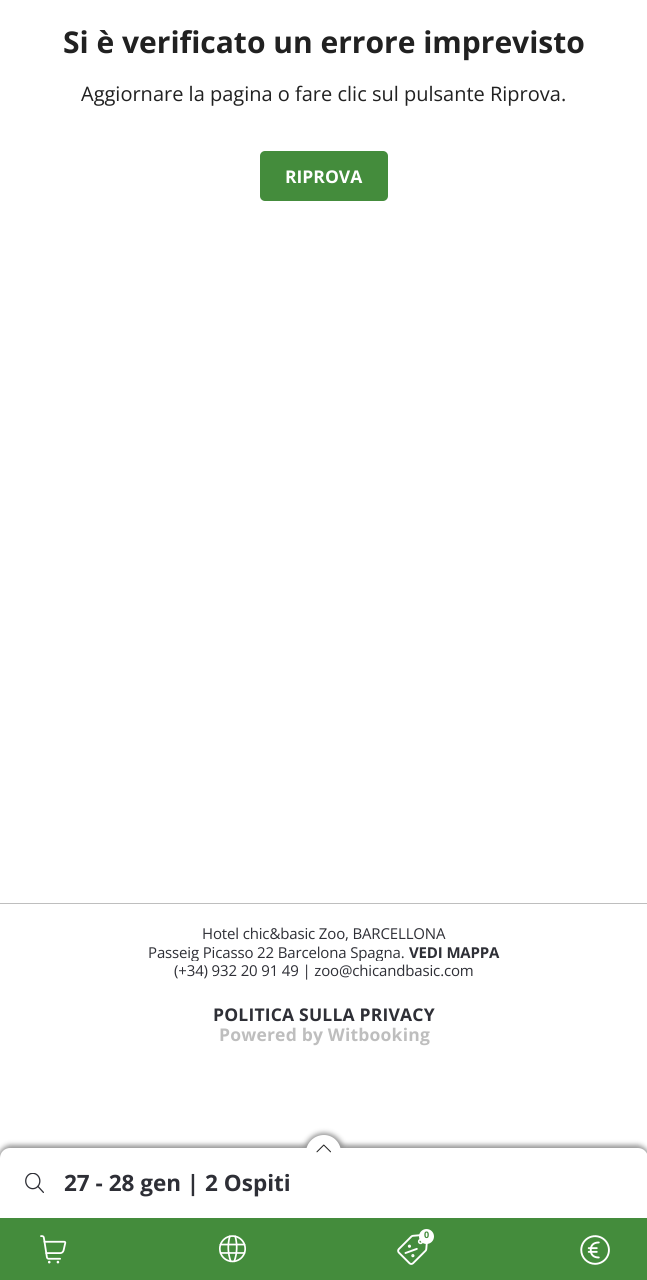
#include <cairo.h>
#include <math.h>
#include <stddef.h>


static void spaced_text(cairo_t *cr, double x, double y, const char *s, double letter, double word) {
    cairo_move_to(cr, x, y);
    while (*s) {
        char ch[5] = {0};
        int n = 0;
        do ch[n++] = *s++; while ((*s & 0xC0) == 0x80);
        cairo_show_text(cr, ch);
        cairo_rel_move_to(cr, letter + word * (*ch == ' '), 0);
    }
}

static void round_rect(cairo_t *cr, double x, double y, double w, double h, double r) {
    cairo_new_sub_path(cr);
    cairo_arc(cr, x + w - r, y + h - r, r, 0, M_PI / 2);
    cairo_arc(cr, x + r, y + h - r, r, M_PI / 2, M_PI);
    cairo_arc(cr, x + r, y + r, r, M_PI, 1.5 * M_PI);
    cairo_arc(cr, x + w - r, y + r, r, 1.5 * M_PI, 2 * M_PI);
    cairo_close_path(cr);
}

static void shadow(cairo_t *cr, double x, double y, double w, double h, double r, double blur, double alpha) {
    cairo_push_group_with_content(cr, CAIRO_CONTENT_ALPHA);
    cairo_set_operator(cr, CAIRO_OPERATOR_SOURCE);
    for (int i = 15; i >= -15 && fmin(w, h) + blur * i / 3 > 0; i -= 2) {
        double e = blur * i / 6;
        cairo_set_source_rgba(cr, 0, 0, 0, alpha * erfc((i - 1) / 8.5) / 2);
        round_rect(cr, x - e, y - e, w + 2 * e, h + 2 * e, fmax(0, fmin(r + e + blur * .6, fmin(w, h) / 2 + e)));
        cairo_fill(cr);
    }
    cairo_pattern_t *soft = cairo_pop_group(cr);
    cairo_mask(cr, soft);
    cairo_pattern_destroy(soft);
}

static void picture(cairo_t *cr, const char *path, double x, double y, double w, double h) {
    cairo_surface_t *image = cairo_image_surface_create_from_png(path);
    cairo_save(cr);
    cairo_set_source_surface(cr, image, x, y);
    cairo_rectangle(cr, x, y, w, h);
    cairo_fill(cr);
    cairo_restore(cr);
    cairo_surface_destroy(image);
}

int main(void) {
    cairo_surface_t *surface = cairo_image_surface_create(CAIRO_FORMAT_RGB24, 647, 1280);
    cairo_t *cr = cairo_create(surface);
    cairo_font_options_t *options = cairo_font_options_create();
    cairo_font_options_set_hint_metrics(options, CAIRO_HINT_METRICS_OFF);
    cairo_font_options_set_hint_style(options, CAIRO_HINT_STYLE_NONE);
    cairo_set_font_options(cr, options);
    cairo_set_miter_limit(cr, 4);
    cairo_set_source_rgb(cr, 1, 1, 1);
    cairo_paint(cr);
    cairo_select_font_face(cr, "Open Sans", CAIRO_FONT_SLANT_NORMAL, CAIRO_FONT_WEIGHT_BOLD);
    cairo_set_font_size(cr, 30);
    cairo_set_source_rgb(cr, 0.129, 0.129, 0.129);
    cairo_move_to(cr, 63, 53);
    cairo_show_text(cr, "Si è verificato un errore imprevisto");
    cairo_select_font_face(cr, "Open Sans", CAIRO_FONT_SLANT_NORMAL, CAIRO_FONT_WEIGHT_NORMAL);
    cairo_set_font_size(cr, 20);
    cairo_move_to(cr, 81, 101);
    cairo_show_text(cr, "Aggiornare la pagina o fare clic sul pulsante Riprova.");
    cairo_set_source_rgb(cr, 0.267, 0.549, 0.235);
    round_rect(cr, 260, 151, 128, 50, 5);
    cairo_fill(cr);
    cairo_select_font_face(cr, "Open Sans", CAIRO_FONT_SLANT_NORMAL, CAIRO_FONT_WEIGHT_BOLD);
    cairo_set_font_size(cr, 17.5);
    cairo_set_source_rgb(cr, 1, 1, 1);
    cairo_move_to(cr, 285, 183);
    cairo_show_text(cr, "RIPROVA");
    cairo_set_source_rgb(cr, 0.745, 0.745, 0.745);
    cairo_rectangle(cr, 0, 903, 647, 1);
    cairo_fill(cr);
    cairo_select_font_face(cr, "Open Sans", CAIRO_FONT_SLANT_NORMAL, CAIRO_FONT_WEIGHT_NORMAL);
    cairo_set_font_size(cr, 15);
    cairo_set_source_rgb(cr, 0.18, 0.184, 0.212);
    spaced_text(cr, 202, 939, "Hotel chic&basic Zoo, BARCELLONA", -0.15, 0);
    cairo_save(cr);
    cairo_rectangle(cr, 40, 943, 568, 18);
    cairo_clip(cr);
    spaced_text(cr, 148, 958, "Passeig Picasso 22 Barcelona Spagna.", -0.15, 0);
    cairo_restore(cr);
    cairo_select_font_face(cr, "Open Sans", CAIRO_FONT_SLANT_NORMAL, CAIRO_FONT_WEIGHT_BOLD);
    spaced_text(cr, 409, 958, "VEDI MAPPA", -0.15, 0);
    cairo_select_font_face(cr, "Open Sans", CAIRO_FONT_SLANT_NORMAL, CAIRO_FONT_WEIGHT_NORMAL);
    spaced_text(cr, 174, 976, "(+34) 932 20 91 49 | zoo@chicandbasic.com", -0.15, 0);
    cairo_select_font_face(cr, "Open Sans", CAIRO_FONT_SLANT_NORMAL, CAIRO_FONT_WEIGHT_BOLD);
    cairo_set_font_size(cr, 17.5);
    spaced_text(cr, 213, 1021, "POLITICA SULLA PRIVACY", 0.2, 0);
    cairo_set_source_rgb(cr, 0.745, 0.745, 0.745);
    spaced_text(cr, 219, 1041, "Powered by Witbooking", 0.2, 0);
    cairo_set_source_rgb(cr, 0.58, 0.58, 0.58);
    shadow(cr, -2, 1145, 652, 75, 13, 2.5, 1);
    shadow(cr, 304, 1133, 40, 40, 20, 2.5, 1);
    cairo_set_source_rgb(cr, 1, 1, 1);
    cairo_new_path(cr);
    cairo_move_to(cr, 10, 1148);
    cairo_line_to(cr, 638, 1148);
    cairo_curve_to(cr, 643.5, 1148, 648, 1152.5, 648, 1158);
    cairo_line_to(cr, 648, 1218);
    cairo_line_to(cr, 0, 1218);
    cairo_line_to(cr, 0, 1158);
    cairo_curve_to(cr, 0, 1152.5, 4.5, 1148, 10, 1148);
    cairo_close_path(cr);
    cairo_fill(cr);
    cairo_new_path(cr);
    cairo_move_to(cr, 324, 1170);
    cairo_curve_to(cr, 314, 1170, 306, 1162, 306, 1152.5);
    cairo_curve_to(cr, 306, 1143, 314, 1135, 324, 1135);
    cairo_curve_to(cr, 333.5, 1135, 341, 1143, 341, 1152.5);
    cairo_curve_to(cr, 341, 1162, 333.5, 1170, 324, 1170);
    cairo_close_path(cr);
    cairo_fill(cr);
    picture(cr, "img1.png", 316, 1144, 15, 9);
    picture(cr, "img2.png", 25, 1173, 19, 20);
    cairo_set_font_size(cr, 22.5);
    cairo_set_source_rgb(cr, 0.18, 0.184, 0.212);
    cairo_move_to(cr, 64, 1191);
    cairo_show_text(cr, "27 - 28 gen | 2 Ospiti");
    cairo_set_source_rgb(cr, 0.267, 0.549, 0.235);
    cairo_rectangle(cr, 0, 1218, 647, 62);
    cairo_fill(cr);
    picture(cr, "img3.png", 40, 1235, 27, 29);
    picture(cr, "img4.png", 219, 1235, 27, 28);
    picture(cr, "img5.png", 397, 1234, 31, 31);
    cairo_set_source_rgb(cr, 1, 1, 1);
    cairo_arc(cr, 426.5, 1236.5, 7.5, 0, 2 * M_PI);
    cairo_fill(cr);
    cairo_set_font_size(cr, 9);
    cairo_set_source_rgb(cr, 0.267, 0.549, 0.235);
    cairo_move_to(cr, 424, 1238);
    cairo_show_text(cr, "0");
    picture(cr, "img6.png", 580, 1235, 30, 30);
    cairo_surface_write_to_png(surface, "page.png");
    cairo_font_options_destroy(options);
    cairo_destroy(cr);
    cairo_surface_destroy(surface);
    return 0;
}
